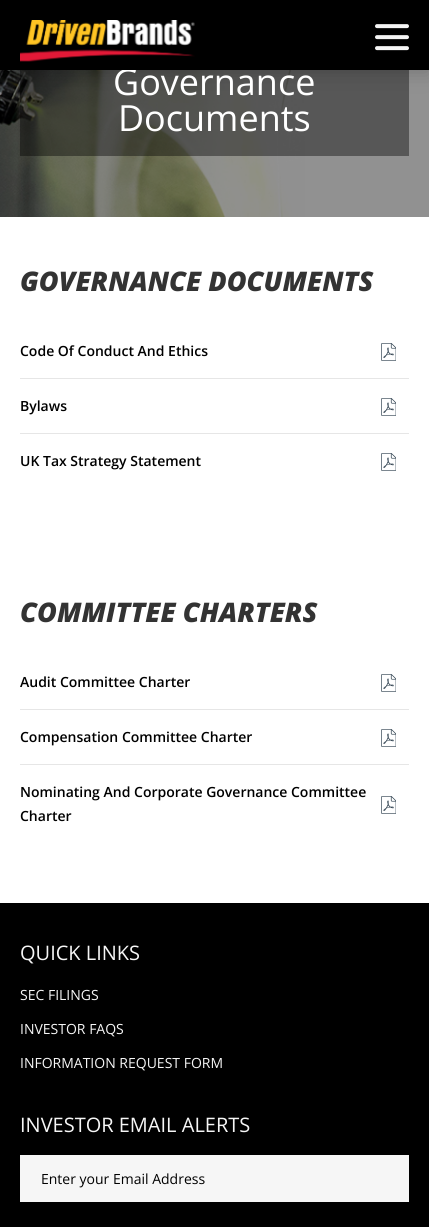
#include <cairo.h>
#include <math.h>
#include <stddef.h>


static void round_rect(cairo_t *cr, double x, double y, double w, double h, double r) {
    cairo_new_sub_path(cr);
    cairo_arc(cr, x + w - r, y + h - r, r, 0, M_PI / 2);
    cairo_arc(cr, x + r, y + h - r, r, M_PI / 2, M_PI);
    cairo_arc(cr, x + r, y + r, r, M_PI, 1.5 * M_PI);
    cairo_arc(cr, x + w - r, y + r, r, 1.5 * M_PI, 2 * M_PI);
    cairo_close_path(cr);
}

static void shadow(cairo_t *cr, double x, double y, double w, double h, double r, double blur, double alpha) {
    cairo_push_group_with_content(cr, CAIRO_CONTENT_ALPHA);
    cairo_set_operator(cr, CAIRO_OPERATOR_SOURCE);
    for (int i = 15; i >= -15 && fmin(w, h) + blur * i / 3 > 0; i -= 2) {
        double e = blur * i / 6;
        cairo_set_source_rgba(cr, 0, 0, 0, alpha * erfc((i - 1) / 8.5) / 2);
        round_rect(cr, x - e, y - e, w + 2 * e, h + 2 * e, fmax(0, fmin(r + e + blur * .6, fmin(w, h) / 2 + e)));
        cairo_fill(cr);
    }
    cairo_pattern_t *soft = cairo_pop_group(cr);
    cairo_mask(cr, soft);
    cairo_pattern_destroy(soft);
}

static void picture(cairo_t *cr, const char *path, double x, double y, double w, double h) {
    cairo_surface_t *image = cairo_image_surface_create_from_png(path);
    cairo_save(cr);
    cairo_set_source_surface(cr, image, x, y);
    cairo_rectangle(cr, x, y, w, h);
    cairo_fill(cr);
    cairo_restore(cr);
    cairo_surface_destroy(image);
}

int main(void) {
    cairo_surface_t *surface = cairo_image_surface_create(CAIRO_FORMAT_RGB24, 429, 1227);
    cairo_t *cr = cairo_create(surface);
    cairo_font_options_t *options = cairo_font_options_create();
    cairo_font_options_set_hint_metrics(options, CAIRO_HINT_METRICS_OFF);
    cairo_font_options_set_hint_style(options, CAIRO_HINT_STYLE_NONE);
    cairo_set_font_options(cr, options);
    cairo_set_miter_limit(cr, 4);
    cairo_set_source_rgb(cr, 1, 1, 1);
    cairo_paint(cr);
    cairo_set_source_rgb(cr, 0.569, 0.569, 0.569);
    cairo_rectangle(cr, 305, 70, 124, 147);
    cairo_fill(cr);
    picture(cr, "img3.png", 0, 70, 305, 147);
    cairo_set_source_rgba(cr, 0, 0, 0, 0.4);
    cairo_rectangle(cr, 20, 70, 389, 86);
    cairo_fill(cr);
    cairo_set_source_rgb(cr, 0, 0, 0);
    shadow(cr, 0, 2, 429, 70, 0, 10, 0.2);
    cairo_select_font_face(cr, "Open Sans", CAIRO_FONT_SLANT_NORMAL, CAIRO_FONT_WEIGHT_NORMAL);
    cairo_set_font_size(cr, 36);
    cairo_set_source_rgb(cr, 1, 1, 1);
    cairo_move_to(cr, 113, 95);
    cairo_show_text(cr, "Governance");
    cairo_set_source_rgb(cr, 0, 0, 0);
    cairo_rectangle(cr, 0, 0, 429, 70);
    cairo_fill(cr);
    picture(cr, "img1.png", 20, 20, 175, 42);
    picture(cr, "img2.png", 375, 24, 34, 27);
    cairo_set_source_rgb(cr, 1, 1, 1);
    cairo_move_to(cr, 118, 131);
    cairo_show_text(cr, "Documents");
    cairo_select_font_face(cr, "Open Sans ExtraBold", CAIRO_FONT_SLANT_ITALIC, CAIRO_FONT_WEIGHT_NORMAL);
    cairo_set_font_size(cr, 27);
    cairo_set_source_rgb(cr, 0.2, 0.2, 0.2);
    cairo_move_to(cr, 20, 291);
    cairo_show_text(cr, "GOVERNANCE DOCUMENTS");
    cairo_select_font_face(cr, "Open Sans SemiBold", CAIRO_FONT_SLANT_NORMAL, CAIRO_FONT_WEIGHT_NORMAL);
    cairo_set_font_size(cr, 14);
    cairo_set_source_rgb(cr, 0, 0, 0);
    cairo_move_to(cr, 20, 356);
    cairo_show_text(cr, "Code Of Conduct And Ethics");
    picture(cr, "img4.png", 381, 343, 15, 18);
    cairo_set_source_rgb(cr, 0.902, 0.902, 0.902);
    cairo_rectangle(cr, 20, 378, 389, 1);
    cairo_fill(cr);
    cairo_set_source_rgb(cr, 0, 0, 0);
    cairo_move_to(cr, 20, 411);
    cairo_show_text(cr, "Bylaws");
    picture(cr, "img4.png", 381, 398, 15, 18);
    cairo_set_source_rgb(cr, 0.902, 0.902, 0.902);
    cairo_rectangle(cr, 20, 433, 389, 1);
    cairo_fill(cr);
    cairo_set_source_rgb(cr, 0, 0, 0);
    cairo_move_to(cr, 20, 466);
    cairo_show_text(cr, "UK Tax Strategy Statement");
    picture(cr, "img4.png", 381, 453, 15, 18);
    cairo_select_font_face(cr, "Open Sans ExtraBold", CAIRO_FONT_SLANT_ITALIC, CAIRO_FONT_WEIGHT_NORMAL);
    cairo_set_font_size(cr, 27);
    cairo_set_source_rgb(cr, 0.2, 0.2, 0.2);
    cairo_move_to(cr, 20, 622);
    cairo_show_text(cr, "COMMITTEE CHARTERS");
    cairo_select_font_face(cr, "Open Sans SemiBold", CAIRO_FONT_SLANT_NORMAL, CAIRO_FONT_WEIGHT_NORMAL);
    cairo_set_font_size(cr, 14);
    cairo_set_source_rgb(cr, 0, 0, 0);
    cairo_move_to(cr, 20, 687);
    cairo_show_text(cr, "Audit Committee Charter");
    picture(cr, "img4.png", 381, 674, 15, 18);
    cairo_set_source_rgb(cr, 0.902, 0.902, 0.902);
    cairo_rectangle(cr, 20, 709, 389, 1);
    cairo_fill(cr);
    cairo_set_source_rgb(cr, 0, 0, 0);
    cairo_move_to(cr, 20, 742);
    cairo_show_text(cr, "Compensation Committee Charter");
    picture(cr, "img4.png", 381, 729, 15, 18);
    cairo_set_source_rgb(cr, 0.902, 0.902, 0.902);
    cairo_rectangle(cr, 20, 764, 389, 1);
    cairo_fill(cr);
    cairo_set_source_rgb(cr, 0, 0, 0);
    cairo_move_to(cr, 20, 797);
    cairo_show_text(cr, "Nominating And Corporate Governance Committee");
    cairo_move_to(cr, 20, 821);
    cairo_show_text(cr, "Charter");
    picture(cr, "img4.png", 381, 796, 15, 18);
    cairo_rectangle(cr, 0, 903, 429, 324);
    cairo_fill(cr);
    cairo_select_font_face(cr, "Open Sans", CAIRO_FONT_SLANT_NORMAL, CAIRO_FONT_WEIGHT_NORMAL);
    cairo_set_font_size(cr, 20);
    cairo_set_source_rgb(cr, 0.961, 0.961, 0.961);
    cairo_move_to(cr, 20, 960);
    cairo_show_text(cr, "QUICK LINKS");
    cairo_set_font_size(cr, 14);
    cairo_move_to(cr, 20, 1000);
    cairo_show_text(cr, "SEC FILINGS");
    cairo_move_to(cr, 20, 1034);
    cairo_show_text(cr, "INVESTOR FAQS");
    cairo_move_to(cr, 20, 1068);
    cairo_show_text(cr, "INFORMATION REQUEST FORM");
    cairo_set_font_size(cr, 20);
    cairo_move_to(cr, 20, 1132);
    cairo_show_text(cr, "INVESTOR EMAIL ALERTS");
    cairo_rectangle(cr, 20, 1155, 389, 47);
    cairo_fill(cr);
    cairo_set_font_size(cr, 14);
    cairo_set_source_rgb(cr, 0, 0, 0);
    cairo_move_to(cr, 41, 1184);
    cairo_show_text(cr, "Enter your Email Address");
    cairo_surface_write_to_png(surface, "page.png");
    cairo_font_options_destroy(options);
    cairo_destroy(cr);
    cairo_surface_destroy(surface);
    return 0;
}
